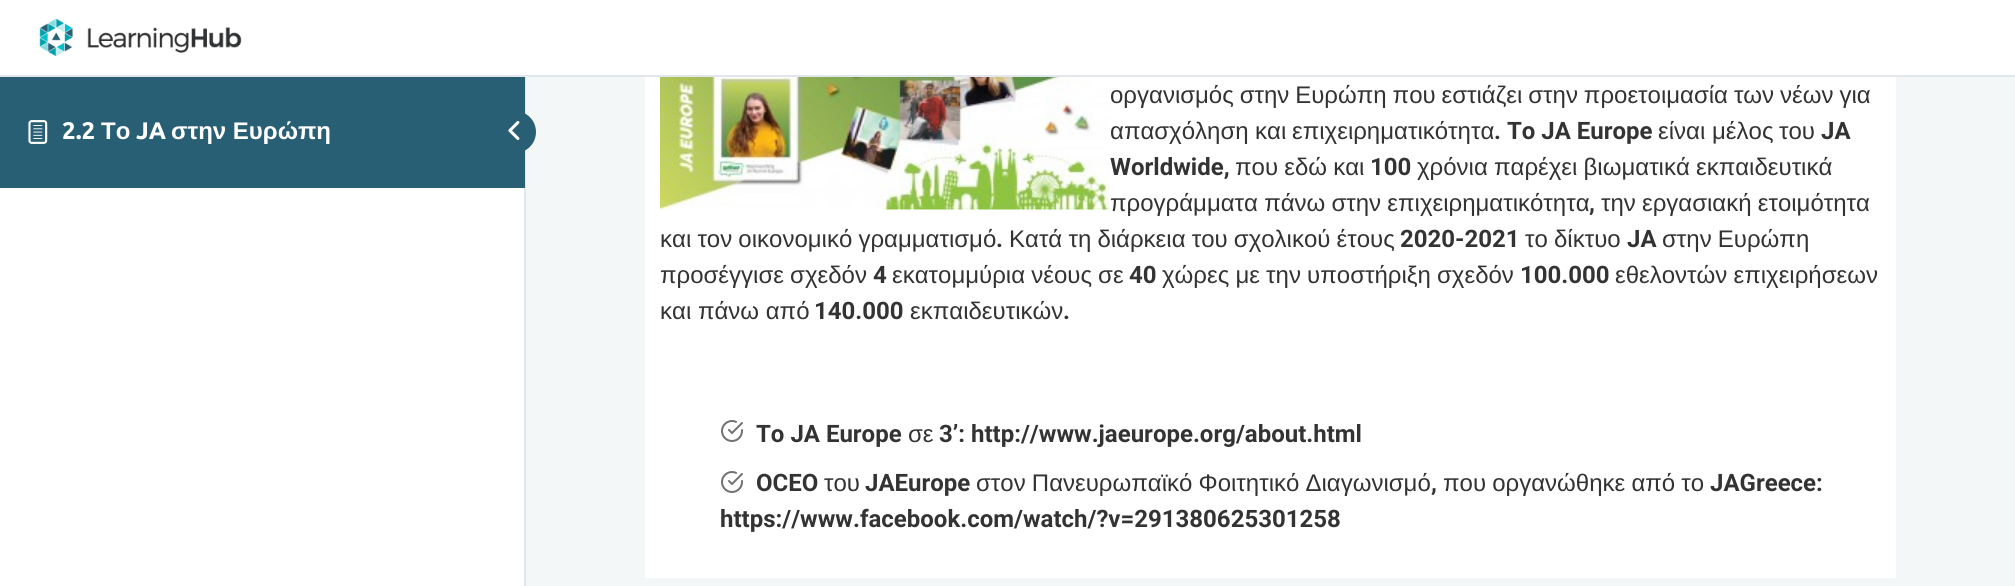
#include <cairo.h>
#include <math.h>
#include <stddef.h>


static void spaced_text(cairo_t *cr, double x, double y, const char *s, double letter, double word) {
    cairo_move_to(cr, x, y);
    while (*s) {
        char ch[5] = {0};
        int n = 0;
        do ch[n++] = *s++; while ((*s & 0xC0) == 0x80);
        cairo_show_text(cr, ch);
        cairo_rel_move_to(cr, letter + word * (*ch == ' '), 0);
    }
}

static void round_rect(cairo_t *cr, double x, double y, double w, double h, double r) {
    cairo_new_sub_path(cr);
    cairo_arc(cr, x + w - r, y + h - r, r, 0, M_PI / 2);
    cairo_arc(cr, x + r, y + h - r, r, M_PI / 2, M_PI);
    cairo_arc(cr, x + r, y + r, r, M_PI, 1.5 * M_PI);
    cairo_arc(cr, x + w - r, y + r, r, 1.5 * M_PI, 2 * M_PI);
    cairo_close_path(cr);
}

static void picture(cairo_t *cr, const char *path, double x, double y, double w, double h) {
    cairo_surface_t *image = cairo_image_surface_create_from_png(path);
    cairo_save(cr);
    cairo_set_source_surface(cr, image, x, y);
    cairo_rectangle(cr, x, y, w, h);
    cairo_fill(cr);
    cairo_restore(cr);
    cairo_surface_destroy(image);
}

int main(void) {
    cairo_surface_t *surface = cairo_image_surface_create(CAIRO_FORMAT_RGB24, 2015, 586);
    cairo_t *cr = cairo_create(surface);
    cairo_font_options_t *options = cairo_font_options_create();
    cairo_font_options_set_hint_metrics(options, CAIRO_HINT_METRICS_OFF);
    cairo_font_options_set_hint_style(options, CAIRO_HINT_STYLE_NONE);
    cairo_set_font_options(cr, options);
    cairo_set_miter_limit(cr, 4);
    cairo_set_source_rgb(cr, 0.957, 0.965, 0.965);
    cairo_paint(cr);
    cairo_set_source_rgb(cr, 1, 1, 1);
    cairo_rectangle(cr, 0, 188, 524, 398);
    cairo_fill(cr);
    cairo_set_source_rgb(cr, 0.886, 0.906, 0.929);
    cairo_rectangle(cr, 524, 77, 2, 509);
    cairo_fill(cr);
    cairo_set_source_rgb(cr, 0.157, 0.373, 0.455);
    cairo_rectangle(cr, 0, 77, 525, 111);
    cairo_fill(cr);
    picture(cr, "img1.png", 28, 120, 20, 24);
    cairo_select_font_face(cr, "Ubuntu", CAIRO_FONT_SLANT_NORMAL, CAIRO_FONT_WEIGHT_BOLD);
    cairo_set_font_size(cr, 24);
    cairo_set_source_rgb(cr, 1, 1, 1);
    cairo_move_to(cr, 62, 139);
    cairo_show_text(cr, "2.2");
    cairo_select_font_face(cr, "Liberation Sans", CAIRO_FONT_SLANT_NORMAL, CAIRO_FONT_WEIGHT_BOLD);
    cairo_move_to(cr, 101, 139);
    cairo_show_text(cr, "Το");
    cairo_select_font_face(cr, "Ubuntu", CAIRO_FONT_SLANT_NORMAL, CAIRO_FONT_WEIGHT_BOLD);
    cairo_move_to(cr, 136, 139);
    cairo_show_text(cr, "JA");
    cairo_select_font_face(cr, "Liberation Sans", CAIRO_FONT_SLANT_NORMAL, CAIRO_FONT_WEIGHT_BOLD);
    cairo_move_to(cr, 171, 139);
    cairo_show_text(cr, "στην Ευρώπη");
    cairo_set_source_rgb(cr, 0.157, 0.373, 0.455);
    round_rect(cr, 492, 111, 44, 42, 21);
    cairo_fill(cr);
    picture(cr, "img2.png", 508, 121, 12, 19);
    cairo_set_source_rgb(cr, 1, 1, 1);
    cairo_rectangle(cr, 0, 0, 2015, 75);
    cairo_fill(cr);
    cairo_set_source_rgb(cr, 0.886, 0.906, 0.929);
    cairo_rectangle(cr, 0, 75, 2015, 2);
    cairo_fill(cr);
    picture(cr, "img3.png", 39, 18, 203, 39);
    cairo_set_source_rgb(cr, 1, 1, 1);
    cairo_rectangle(cr, 645, 77, 1251, 501);
    cairo_fill(cr);
    picture(cr, "img4.png", 660, 77, 450, 133);
    cairo_select_font_face(cr, "Liberation Sans", CAIRO_FONT_SLANT_NORMAL, CAIRO_FONT_WEIGHT_NORMAL);
    cairo_set_source_rgb(cr, 0.2, 0.2, 0.2);
    spaced_text(cr, 1110, 103, "οργανισμός στην Ευρώπη που εστιάζει στην προετοιμασία των νέων για", 0, -0.75);
    cairo_move_to(cr, 1110, 139);
    cairo_show_text(cr, "απασχόληση");
    cairo_move_to(cr, 1255, 139);
    cairo_show_text(cr, "και");
    cairo_move_to(cr, 1292, 139);
    cairo_show_text(cr, "επιχειρηματικότητα");
    cairo_select_font_face(cr, "Roboto", CAIRO_FONT_SLANT_NORMAL, CAIRO_FONT_WEIGHT_BOLD);
    cairo_move_to(cr, 1494, 139);
    cairo_show_text(cr, ". To JA Europe");
    cairo_select_font_face(cr, "Liberation Sans", CAIRO_FONT_SLANT_NORMAL, CAIRO_FONT_WEIGHT_NORMAL);
    cairo_move_to(cr, 1658, 139);
    cairo_show_text(cr, "είναι");
    cairo_move_to(cr, 1712, 139);
    cairo_show_text(cr, "μέλος");
    cairo_move_to(cr, 1779, 139);
    cairo_show_text(cr, "του");
    cairo_select_font_face(cr, "Roboto", CAIRO_FONT_SLANT_NORMAL, CAIRO_FONT_WEIGHT_BOLD);
    cairo_move_to(cr, 1821, 139);
    cairo_show_text(cr, "JA");
    cairo_move_to(cr, 1110, 175);
    cairo_show_text(cr, "Worldwide,");
    cairo_select_font_face(cr, "Liberation Sans", CAIRO_FONT_SLANT_NORMAL, CAIRO_FONT_WEIGHT_NORMAL);
    spaced_text(cr, 1235, 175, "που εδώ και", 0, -0.5);
    cairo_select_font_face(cr, "Roboto", CAIRO_FONT_SLANT_NORMAL, CAIRO_FONT_WEIGHT_BOLD);
    cairo_move_to(cr, 1370, 175);
    cairo_show_text(cr, "100");
    cairo_select_font_face(cr, "Liberation Sans", CAIRO_FONT_SLANT_NORMAL, CAIRO_FONT_WEIGHT_NORMAL);
    spaced_text(cr, 1417, 175, "χρόνια παρέχει βιωματικά εκπαιδευτικά", 0, -0.5);
    spaced_text(cr, 1110, 211, "προγράμματα πάνω στην επιχειρηματικότητα", 0, -0.5);
    cairo_select_font_face(cr, "Roboto", CAIRO_FONT_SLANT_NORMAL, CAIRO_FONT_WEIGHT_BOLD);
    cairo_move_to(cr, 1589, 211);
    cairo_show_text(cr, ",");
    cairo_select_font_face(cr, "Liberation Sans", CAIRO_FONT_SLANT_NORMAL, CAIRO_FONT_WEIGHT_NORMAL);
    spaced_text(cr, 1601, 211, "την εργασιακή ετοιμότητα", 0, -0.5);
    spaced_text(cr, 660, 247, "και τον οικονομικό γραμματισμό", 0, -0.5);
    cairo_select_font_face(cr, "Roboto", CAIRO_FONT_SLANT_NORMAL, CAIRO_FONT_WEIGHT_BOLD);
    cairo_move_to(cr, 996, 247);
    cairo_show_text(cr, ".");
    cairo_select_font_face(cr, "Liberation Sans", CAIRO_FONT_SLANT_NORMAL, CAIRO_FONT_WEIGHT_NORMAL);
    spaced_text(cr, 1009, 247, "Κατά τη διάρκεια του σχολικού έτους", 0, -0.5);
    cairo_select_font_face(cr, "Roboto", CAIRO_FONT_SLANT_NORMAL, CAIRO_FONT_WEIGHT_BOLD);
    cairo_move_to(cr, 1400, 247);
    cairo_show_text(cr, "2020-2021");
    cairo_select_font_face(cr, "Liberation Sans", CAIRO_FONT_SLANT_NORMAL, CAIRO_FONT_WEIGHT_NORMAL);
    spaced_text(cr, 1525, 247, "το δίκτυο", 0, -0.5);
    cairo_select_font_face(cr, "Roboto", CAIRO_FONT_SLANT_NORMAL, CAIRO_FONT_WEIGHT_BOLD);
    cairo_move_to(cr, 1627, 247);
    cairo_show_text(cr, "JA");
    cairo_select_font_face(cr, "Liberation Sans", CAIRO_FONT_SLANT_NORMAL, CAIRO_FONT_WEIGHT_NORMAL);
    spaced_text(cr, 1662, 247, "στην Ευρώπη", 0, -0.5);
    spaced_text(cr, 660, 283, "προσέγγισε σχεδόν", 0, -0.5);
    cairo_select_font_face(cr, "Roboto", CAIRO_FONT_SLANT_NORMAL, CAIRO_FONT_WEIGHT_BOLD);
    cairo_move_to(cr, 873, 283);
    cairo_show_text(cr, "4");
    cairo_select_font_face(cr, "Liberation Sans", CAIRO_FONT_SLANT_NORMAL, CAIRO_FONT_WEIGHT_NORMAL);
    spaced_text(cr, 892, 283, "εκατομμύρια νέους σε", 0, -0.5);
    cairo_select_font_face(cr, "Roboto", CAIRO_FONT_SLANT_NORMAL, CAIRO_FONT_WEIGHT_BOLD);
    cairo_move_to(cr, 1129, 283);
    cairo_show_text(cr, "40");
    cairo_select_font_face(cr, "Liberation Sans", CAIRO_FONT_SLANT_NORMAL, CAIRO_FONT_WEIGHT_NORMAL);
    spaced_text(cr, 1162, 283, "χώρες με την υποστήριξη σχεδόν", 0, -0.5);
    cairo_select_font_face(cr, "Roboto", CAIRO_FONT_SLANT_NORMAL, CAIRO_FONT_WEIGHT_BOLD);
    cairo_move_to(cr, 1520, 283);
    cairo_show_text(cr, "100.000");
    cairo_select_font_face(cr, "Liberation Sans", CAIRO_FONT_SLANT_NORMAL, CAIRO_FONT_WEIGHT_NORMAL);
    spaced_text(cr, 1615, 283, "εθελοντών επιχειρήσεων", 0, -0.5);
    cairo_move_to(cr, 660, 319);
    cairo_show_text(cr, "και πάνω από");
    cairo_select_font_face(cr, "Roboto", CAIRO_FONT_SLANT_NORMAL, CAIRO_FONT_WEIGHT_BOLD);
    cairo_move_to(cr, 814, 319);
    cairo_show_text(cr, "140.000");
    cairo_select_font_face(cr, "Liberation Sans", CAIRO_FONT_SLANT_NORMAL, CAIRO_FONT_WEIGHT_NORMAL);
    cairo_move_to(cr, 910, 319);
    cairo_show_text(cr, "εκπαιδευτικών");
    cairo_select_font_face(cr, "Roboto", CAIRO_FONT_SLANT_NORMAL, CAIRO_FONT_WEIGHT_BOLD);
    cairo_move_to(cr, 1063, 319);
    cairo_show_text(cr, ".");
    picture(cr, "img5.png", 721, 420, 22, 22);
    cairo_move_to(cr, 756, 442);
    cairo_show_text(cr, "To JA Europe");
    cairo_select_font_face(cr, "Liberation Sans", CAIRO_FONT_SLANT_NORMAL, CAIRO_FONT_WEIGHT_NORMAL);
    cairo_move_to(cr, 908, 442);
    cairo_show_text(cr, "σε");
    cairo_select_font_face(cr, "Roboto", CAIRO_FONT_SLANT_NORMAL, CAIRO_FONT_WEIGHT_BOLD);
    cairo_move_to(cr, 939, 442);
    cairo_show_text(cr, "3’: http://www.jaeurope.org/about.html");
    picture(cr, "img5.png", 721, 471, 22, 22);
    cairo_move_to(cr, 756, 491);
    cairo_show_text(cr, "OCEO");
    cairo_select_font_face(cr, "Liberation Sans", CAIRO_FONT_SLANT_NORMAL, CAIRO_FONT_WEIGHT_NORMAL);
    cairo_move_to(cr, 824, 491);
    cairo_show_text(cr, "του");
    cairo_select_font_face(cr, "Roboto", CAIRO_FONT_SLANT_NORMAL, CAIRO_FONT_WEIGHT_BOLD);
    cairo_move_to(cr, 865, 491);
    cairo_show_text(cr, "JAEurope");
    cairo_select_font_face(cr, "Liberation Sans", CAIRO_FONT_SLANT_NORMAL, CAIRO_FONT_WEIGHT_NORMAL);
    spaced_text(cr, 976, 491, "στον Πανευρωπαϊκό Φοιτητικό Διαγωνισμό", 0, -0.5);
    cairo_select_font_face(cr, "Roboto", CAIRO_FONT_SLANT_NORMAL, CAIRO_FONT_WEIGHT_BOLD);
    cairo_move_to(cr, 1431, 491);
    cairo_show_text(cr, ",");
    cairo_select_font_face(cr, "Liberation Sans", CAIRO_FONT_SLANT_NORMAL, CAIRO_FONT_WEIGHT_NORMAL);
    spaced_text(cr, 1443, 491, "που οργανώθηκε από το", 0, -0.5);
    cairo_select_font_face(cr, "Roboto", CAIRO_FONT_SLANT_NORMAL, CAIRO_FONT_WEIGHT_BOLD);
    cairo_move_to(cr, 1710, 491);
    cairo_show_text(cr, "JAGreece:");
    cairo_move_to(cr, 720, 527);
    cairo_show_text(cr, "https://www.facebook.com/watch/?v=291380625301258");
    cairo_surface_write_to_png(surface, "page.png");
    cairo_font_options_destroy(options);
    cairo_destroy(cr);
    cairo_surface_destroy(surface);
    return 0;
}
